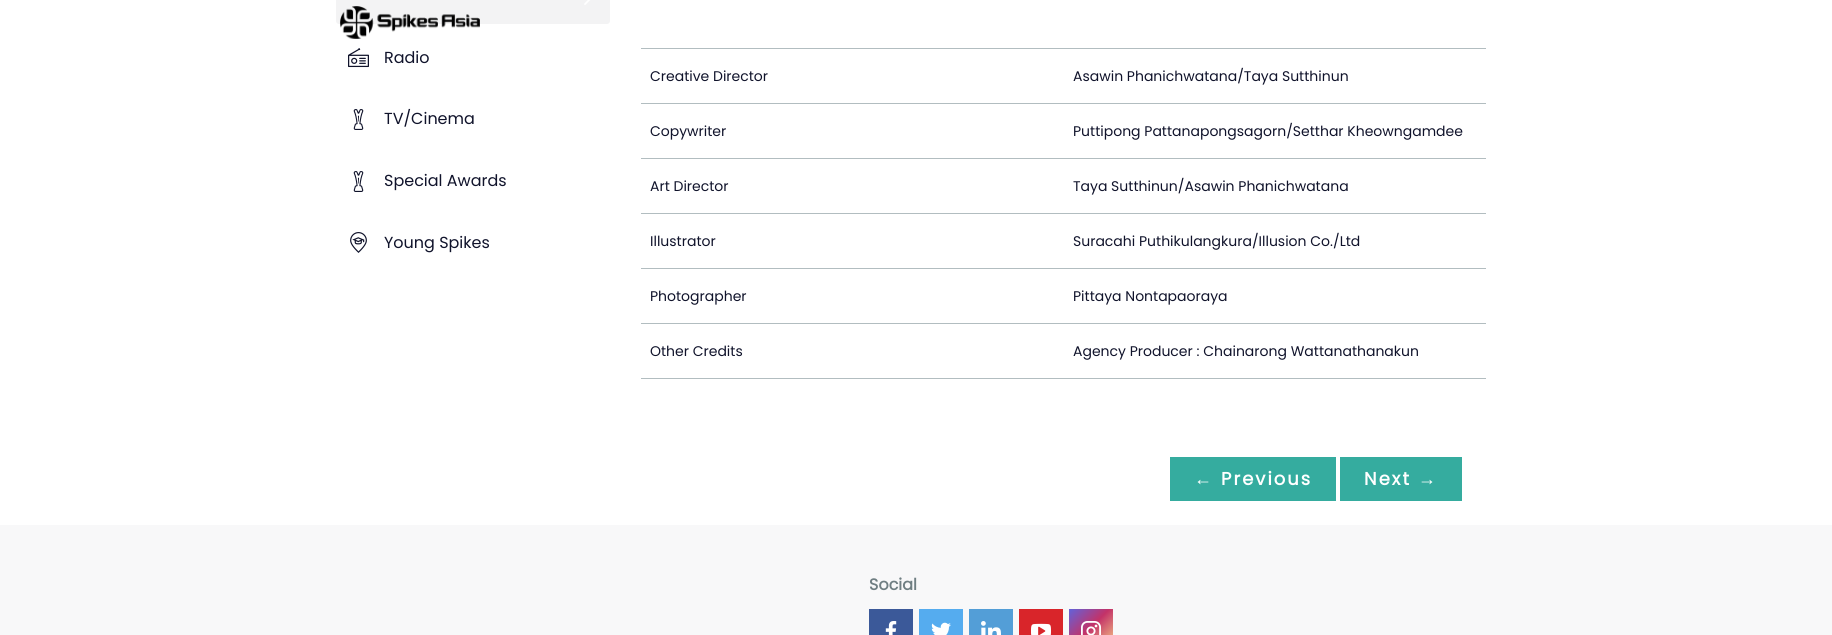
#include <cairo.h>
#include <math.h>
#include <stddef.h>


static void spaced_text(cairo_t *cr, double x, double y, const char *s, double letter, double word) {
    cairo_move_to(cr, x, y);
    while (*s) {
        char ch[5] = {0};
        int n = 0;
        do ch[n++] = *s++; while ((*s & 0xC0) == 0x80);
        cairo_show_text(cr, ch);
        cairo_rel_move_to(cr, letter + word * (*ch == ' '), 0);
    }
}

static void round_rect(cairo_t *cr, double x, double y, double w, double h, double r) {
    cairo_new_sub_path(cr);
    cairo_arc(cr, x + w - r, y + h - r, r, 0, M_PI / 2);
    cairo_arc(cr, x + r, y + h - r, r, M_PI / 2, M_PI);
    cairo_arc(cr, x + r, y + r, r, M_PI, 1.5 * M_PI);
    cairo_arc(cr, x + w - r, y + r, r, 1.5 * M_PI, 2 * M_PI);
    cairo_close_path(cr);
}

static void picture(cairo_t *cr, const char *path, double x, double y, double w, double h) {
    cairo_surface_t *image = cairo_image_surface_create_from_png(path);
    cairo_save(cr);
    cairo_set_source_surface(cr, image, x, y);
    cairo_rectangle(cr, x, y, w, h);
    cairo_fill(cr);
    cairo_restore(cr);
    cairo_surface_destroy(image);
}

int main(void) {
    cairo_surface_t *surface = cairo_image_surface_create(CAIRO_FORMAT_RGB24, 1832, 635);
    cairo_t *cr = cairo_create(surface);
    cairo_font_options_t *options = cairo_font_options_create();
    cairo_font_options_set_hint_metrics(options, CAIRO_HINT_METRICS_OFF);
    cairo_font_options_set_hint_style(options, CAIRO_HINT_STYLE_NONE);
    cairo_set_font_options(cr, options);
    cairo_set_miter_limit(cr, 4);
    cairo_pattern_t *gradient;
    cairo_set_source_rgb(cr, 1, 1, 1);
    cairo_paint(cr);
    cairo_set_source_rgb(cr, 0.953, 0.953, 0.957);
    round_rect(cr, 336, -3, 274, 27, 3);
    cairo_fill(cr);
    picture(cr, "img1.png", 340, 6, 140, 33);
    picture(cr, "img2.png", 584, 0, 7, 5);
    cairo_select_font_face(cr, "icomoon", CAIRO_FONT_SLANT_NORMAL, CAIRO_FONT_WEIGHT_NORMAL);
    cairo_set_font_size(cr, 21);
    cairo_set_source_rgb(cr, 0.063, 0.075, 0.169);
    cairo_move_to(cr, 348, 68);
    cairo_show_text(cr, ";");
    cairo_select_font_face(cr, "Poppins", CAIRO_FONT_SLANT_NORMAL, CAIRO_FONT_WEIGHT_NORMAL);
    cairo_set_font_size(cr, 16);
    cairo_move_to(cr, 384, 63);
    cairo_show_text(cr, "Radio");
    picture(cr, "img3.png", 353, 109, 11, 21);
    cairo_move_to(cr, 384, 124);
    cairo_show_text(cr, "TV/Cinema");
    picture(cr, "img3.png", 353, 171, 11, 21);
    cairo_move_to(cr, 384, 186);
    cairo_show_text(cr, "Special Awards");
    cairo_select_font_face(cr, "icomoon", CAIRO_FONT_SLANT_NORMAL, CAIRO_FONT_WEIGHT_NORMAL);
    cairo_set_font_size(cr, 21);
    cairo_move_to(cr, 348, 253);
    cairo_show_text(cr, "1");
    cairo_select_font_face(cr, "Poppins", CAIRO_FONT_SLANT_NORMAL, CAIRO_FONT_WEIGHT_NORMAL);
    cairo_set_font_size(cr, 16);
    cairo_move_to(cr, 384, 248);
    cairo_show_text(cr, "Young Spikes");
    cairo_set_source_rgb(cr, 0.698, 0.741, 0.753);
    cairo_rectangle(cr, 641, 48, 845, 1);
    cairo_fill(cr);
    cairo_set_font_size(cr, 14);
    cairo_set_source_rgb(cr, 0.063, 0.075, 0.169);
    cairo_move_to(cr, 650, 81);
    cairo_show_text(cr, "Creative Director");
    cairo_move_to(cr, 1073, 81);
    cairo_show_text(cr, "Asawin Phanichwatana/Taya Sutthinun");
    cairo_set_source_rgb(cr, 0.698, 0.741, 0.753);
    cairo_rectangle(cr, 641, 103, 845, 1);
    cairo_fill(cr);
    cairo_set_source_rgb(cr, 0.063, 0.075, 0.169);
    cairo_move_to(cr, 650, 136);
    cairo_show_text(cr, "Copywriter");
    cairo_move_to(cr, 1073, 136);
    cairo_show_text(cr, "Puttipong Pattanapongsagorn/Setthar Kheowngamdee");
    cairo_set_source_rgb(cr, 0.698, 0.741, 0.753);
    cairo_rectangle(cr, 641, 158, 845, 1);
    cairo_fill(cr);
    cairo_set_source_rgb(cr, 0.063, 0.075, 0.169);
    cairo_move_to(cr, 650, 191);
    cairo_show_text(cr, "Art Director");
    cairo_move_to(cr, 1073, 191);
    cairo_show_text(cr, "Taya Sutthinun/Asawin Phanichwatana");
    cairo_set_source_rgb(cr, 0.698, 0.741, 0.753);
    cairo_rectangle(cr, 641, 213, 845, 1);
    cairo_fill(cr);
    cairo_set_source_rgb(cr, 0.063, 0.075, 0.169);
    cairo_move_to(cr, 650, 246);
    cairo_show_text(cr, "Illustrator");
    cairo_move_to(cr, 1073, 246);
    cairo_show_text(cr, "Suracahi Puthikulangkura/Illusion Co./Ltd");
    cairo_set_source_rgb(cr, 0.698, 0.741, 0.753);
    cairo_rectangle(cr, 641, 268, 845, 1);
    cairo_fill(cr);
    cairo_set_source_rgb(cr, 0.063, 0.075, 0.169);
    cairo_move_to(cr, 650, 301);
    cairo_show_text(cr, "Photographer");
    cairo_move_to(cr, 1073, 301);
    cairo_show_text(cr, "Pittaya Nontapaoraya");
    cairo_set_source_rgb(cr, 0.698, 0.741, 0.753);
    cairo_rectangle(cr, 641, 323, 845, 1);
    cairo_fill(cr);
    cairo_rectangle(cr, 641, 378, 845, 1);
    cairo_fill(cr);
    cairo_set_source_rgb(cr, 0.063, 0.075, 0.169);
    cairo_move_to(cr, 650, 356);
    cairo_show_text(cr, "Other Credits");
    cairo_move_to(cr, 1073, 356);
    cairo_show_text(cr, "Agency Producer : Chainarong Wattanathanakun");
    cairo_set_source_rgb(cr, 0.208, 0.675, 0.624);
    cairo_rectangle(cr, 1170, 457, 166, 44);
    cairo_fill(cr);
    cairo_select_font_face(cr, "Liberation Sans", CAIRO_FONT_SLANT_NORMAL, CAIRO_FONT_WEIGHT_BOLD);
    cairo_set_font_size(cr, 18);
    cairo_set_source_rgb(cr, 1, 1, 1);
    spaced_text(cr, 1194, 485, "←", 2, 0);
    cairo_select_font_face(cr, "Poppins", CAIRO_FONT_SLANT_NORMAL, CAIRO_FONT_WEIGHT_BOLD);
    spaced_text(cr, 1221, 485, "Previous", 2, 0);
    cairo_set_source_rgb(cr, 0.208, 0.675, 0.624);
    cairo_rectangle(cr, 1340, 457, 122, 44);
    cairo_fill(cr);
    cairo_set_source_rgb(cr, 1, 1, 1);
    spaced_text(cr, 1364, 485, "Next", 2, 0);
    cairo_select_font_face(cr, "Liberation Sans", CAIRO_FONT_SLANT_NORMAL, CAIRO_FONT_WEIGHT_BOLD);
    spaced_text(cr, 1418, 485, "→", 2, 0);
    cairo_set_source_rgb(cr, 0.969, 0.969, 0.976);
    cairo_rectangle(cr, 0, 525, 1832, 110);
    cairo_fill(cr);
    cairo_select_font_face(cr, "Poppins", CAIRO_FONT_SLANT_NORMAL, CAIRO_FONT_WEIGHT_BOLD);
    cairo_set_font_size(cr, 16);
    cairo_set_source_rgb(cr, 0.435, 0.494, 0.51);
    cairo_move_to(cr, 869, 590);
    cairo_show_text(cr, "Social");
    cairo_set_source_rgb(cr, 0.231, 0.349, 0.6);
    cairo_rectangle(cr, 869, 609, 44, 26);
    cairo_fill(cr);
    picture(cr, "img4.png", 885, 621, 12, 14);
    cairo_set_source_rgb(cr, 0.333, 0.675, 0.937);
    cairo_rectangle(cr, 919, 609, 44, 26);
    cairo_fill(cr);
    picture(cr, "img5.png", 931, 622, 20, 13);
    cairo_set_source_rgb(cr, 0.325, 0.62, 0.843);
    cairo_rectangle(cr, 969, 609, 44, 26);
    cairo_fill(cr);
    picture(cr, "img6.png", 981, 621, 20, 14);
    cairo_set_source_rgb(cr, 0.851, 0.145, 0.165);
    cairo_rectangle(cr, 1019, 609, 44, 26);
    cairo_fill(cr);
    cairo_select_font_face(cr, "icomoon", CAIRO_FONT_SLANT_NORMAL, CAIRO_FONT_WEIGHT_NORMAL);
    cairo_set_font_size(cr, 20);
    cairo_set_source_rgb(cr, 1, 1, 1);
    cairo_move_to(cr, 1031, 641);
    cairo_show_text(cr, "»");
    gradient = cairo_pattern_create_linear(1069, 609, 1113, 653);
    cairo_pattern_add_color_stop_rgba(gradient, 0, 0.384, 0.384, 0.855, 1);
    cairo_pattern_add_color_stop_rgba(gradient, 0.46, 0.765, 0.196, 0.408, 1);
    cairo_pattern_add_color_stop_rgba(gradient, 1, 1, 0.89, 0.545, 1);
    cairo_set_source(cr, gradient);
    cairo_pattern_destroy(gradient);
    cairo_rectangle(cr, 1069, 609, 44, 26);
    cairo_fill(cr);
    picture(cr, "img7.png", 1081, 621, 20, 14);
    cairo_surface_write_to_png(surface, "page.png");
    cairo_font_options_destroy(options);
    cairo_destroy(cr);
    cairo_surface_destroy(surface);
    return 0;
}
